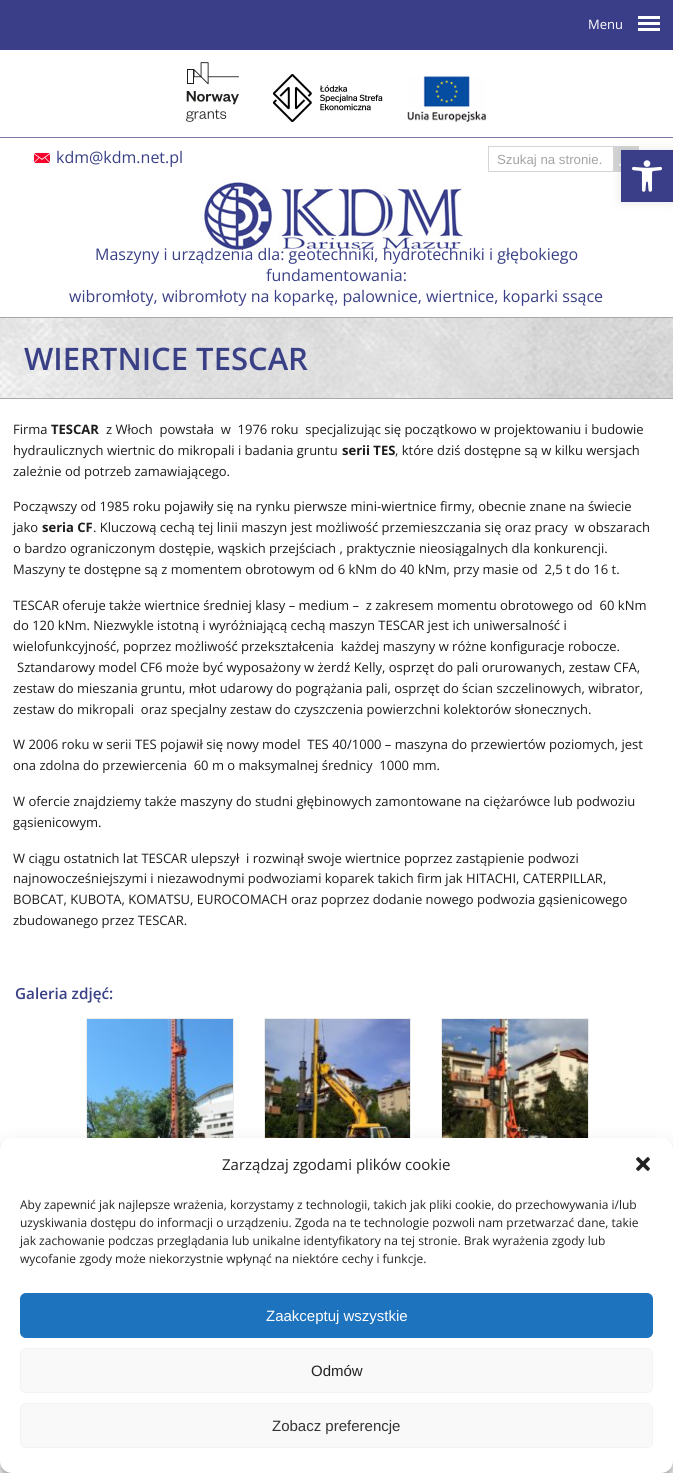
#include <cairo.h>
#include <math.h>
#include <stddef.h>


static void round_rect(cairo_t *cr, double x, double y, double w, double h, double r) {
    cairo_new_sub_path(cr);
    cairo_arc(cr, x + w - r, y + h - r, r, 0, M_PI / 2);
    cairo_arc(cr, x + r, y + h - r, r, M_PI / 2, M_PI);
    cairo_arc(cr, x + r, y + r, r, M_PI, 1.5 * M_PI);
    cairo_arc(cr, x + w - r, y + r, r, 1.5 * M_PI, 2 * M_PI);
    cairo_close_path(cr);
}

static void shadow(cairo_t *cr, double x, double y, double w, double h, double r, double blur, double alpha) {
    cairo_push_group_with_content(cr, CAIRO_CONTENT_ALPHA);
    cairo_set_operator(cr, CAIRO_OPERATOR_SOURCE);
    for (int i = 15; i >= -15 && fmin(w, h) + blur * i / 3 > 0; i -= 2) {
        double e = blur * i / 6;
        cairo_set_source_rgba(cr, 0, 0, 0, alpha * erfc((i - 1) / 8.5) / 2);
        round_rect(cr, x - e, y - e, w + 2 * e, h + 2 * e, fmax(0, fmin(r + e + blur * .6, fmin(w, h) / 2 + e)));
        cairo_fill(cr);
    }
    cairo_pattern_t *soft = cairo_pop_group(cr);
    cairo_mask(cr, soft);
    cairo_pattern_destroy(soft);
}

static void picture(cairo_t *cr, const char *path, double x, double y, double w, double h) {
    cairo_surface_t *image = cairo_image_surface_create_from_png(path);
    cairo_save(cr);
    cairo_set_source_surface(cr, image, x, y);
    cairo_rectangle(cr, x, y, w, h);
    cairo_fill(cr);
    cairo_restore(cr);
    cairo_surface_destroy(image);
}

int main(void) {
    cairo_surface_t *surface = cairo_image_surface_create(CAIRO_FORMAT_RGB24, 673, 1473);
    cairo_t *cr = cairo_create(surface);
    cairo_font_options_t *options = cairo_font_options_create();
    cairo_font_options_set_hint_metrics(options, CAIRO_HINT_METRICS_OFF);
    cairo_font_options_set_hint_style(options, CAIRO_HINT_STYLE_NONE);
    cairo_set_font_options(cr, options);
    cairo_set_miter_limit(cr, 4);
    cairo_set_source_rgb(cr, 1, 1, 1);
    cairo_paint(cr);
    cairo_set_source_rgb(cr, 0.227, 0.243, 0.533);
    cairo_rectangle(cr, 0, 0, 673, 50);
    cairo_fill(cr);
    cairo_select_font_face(cr, "Open Sans", CAIRO_FONT_SLANT_NORMAL, CAIRO_FONT_WEIGHT_NORMAL);
    cairo_set_font_size(cr, 13);
    cairo_set_source_rgb(cr, 1, 1, 1);
    cairo_move_to(cr, 588, 29);
    cairo_show_text(cr, "Menu");
    cairo_rectangle(cr, 638, 16, 22, 3);
    cairo_fill(cr);
    cairo_rectangle(cr, 638, 22, 22, 3);
    cairo_fill(cr);
    cairo_rectangle(cr, 638, 28, 22, 3);
    cairo_fill(cr);
    cairo_set_source_rgb(cr, 0.659, 0.659, 0.659);
    cairo_rectangle(cr, 0, 317, 673, 1);
    cairo_fill(cr);
    cairo_set_source_rgb(cr, 0.486, 0.463, 0.651);
    cairo_rectangle(cr, 0, 137, 673, 1);
    cairo_fill(cr);
    picture(cr, "img1.png", 186, 62, 53, 60);
    picture(cr, "img2.png", 273, 74, 110, 48);
    picture(cr, "img3.png", 407, 76, 79, 46);
    picture(cr, "img4.png", 34, 153, 16, 10);
    cairo_set_font_size(cr, 16);
    cairo_set_source_rgb(cr, 0.224, 0.251, 0.522);
    cairo_move_to(cr, 56, 163);
    cairo_show_text(cr, "kdm@kdm.net.pl");
    cairo_set_source_rgb(cr, 0.827, 0.835, 0.839);
    cairo_rectangle(cr, 488, 146, 125, 1);
    cairo_fill(cr);
    cairo_rectangle(cr, 488, 171, 125, 1);
    cairo_fill(cr);
    cairo_rectangle(cr, 488, 146, 1, 26);
    cairo_fill(cr);
    cairo_select_font_face(cr, "Liberation Sans", CAIRO_FONT_SLANT_NORMAL, CAIRO_FONT_WEIGHT_NORMAL);
    cairo_set_font_size(cr, 13.25);
    cairo_set_source_rgb(cr, 0.643, 0.643, 0.643);
    cairo_move_to(cr, 497, 164);
    cairo_show_text(cr, "Szukaj na stronie.");
    cairo_set_source_rgb(cr, 0.827, 0.835, 0.839);
    cairo_rectangle(cr, 613, 146, 26, 26);
    cairo_fill(cr);
    picture(cr, "img5.png", 619, 162, 2, 4);
    picture(cr, "img6.png", 198, 178, 272, 72);
    cairo_select_font_face(cr, "Open Sans", CAIRO_FONT_SLANT_NORMAL, CAIRO_FONT_WEIGHT_NORMAL);
    cairo_set_font_size(cr, 16);
    cairo_set_source_rgb(cr, 0.224, 0.251, 0.522);
    cairo_move_to(cr, 95, 260);
    cairo_show_text(cr, "Maszyny i urządzenia dla: geotechniki, hydrotechniki i głębokiego");
    cairo_move_to(cr, 266, 281);
    cairo_show_text(cr, "fundamentowania:");
    cairo_move_to(cr, 69, 302);
    cairo_show_text(cr, "wibromłoty, wibromłoty na koparkę, palownice, wiertnice, koparki ssące");
    cairo_set_source_rgb(cr, 0, 0, 0);
    shadow(cr, 621, 150, 52, 52, 0, 5, 0.1);
    cairo_set_source_rgb(cr, 0.227, 0.243, 0.533);
    cairo_rectangle(cr, 621, 150, 52, 52);
    cairo_fill(cr);
    picture(cr, "img7.png", 632, 160, 30, 32);
    picture(cr, "img8.png", 0, 318, 673, 80);
    cairo_set_source_rgb(cr, 0.659, 0.659, 0.659);
    cairo_rectangle(cr, 0, 398, 673, 1);
    cairo_fill(cr);
    cairo_select_font_face(cr, "Open Sans SemiBold", CAIRO_FONT_SLANT_NORMAL, CAIRO_FONT_WEIGHT_NORMAL);
    cairo_set_font_size(cr, 31);
    cairo_set_source_rgb(cr, 0.224, 0.251, 0.522);
    cairo_move_to(cr, 24, 370);
    cairo_show_text(cr, "WIERTNICE TESCAR");
    cairo_select_font_face(cr, "Open Sans", CAIRO_FONT_SLANT_NORMAL, CAIRO_FONT_WEIGHT_NORMAL);
    cairo_set_font_size(cr, 13);
    cairo_set_source_rgb(cr, 0.11, 0.11, 0.11);
    cairo_move_to(cr, 13, 434);
    cairo_show_text(cr, "Firma");
    cairo_select_font_face(cr, "Open Sans", CAIRO_FONT_SLANT_NORMAL, CAIRO_FONT_WEIGHT_BOLD);
    cairo_move_to(cr, 51, 434);
    cairo_show_text(cr, "TESCAR");
    cairo_select_font_face(cr, "Open Sans", CAIRO_FONT_SLANT_NORMAL, CAIRO_FONT_WEIGHT_NORMAL);
    cairo_move_to(cr, 106, 434);
    cairo_show_text(cr, "z Włoch  powstała  w  1976 roku  specjalizując się początkowo w projektowaniu i budowie");
    cairo_move_to(cr, 13, 455);
    cairo_show_text(cr, "hydraulicznych wiertnic do mikropali i badania gruntu");
    cairo_select_font_face(cr, "Open Sans", CAIRO_FONT_SLANT_NORMAL, CAIRO_FONT_WEIGHT_BOLD);
    cairo_move_to(cr, 342, 455);
    cairo_show_text(cr, "serii TES");
    cairo_select_font_face(cr, "Open Sans", CAIRO_FONT_SLANT_NORMAL, CAIRO_FONT_WEIGHT_NORMAL);
    cairo_move_to(cr, 395, 455);
    cairo_show_text(cr, ", które dziś dostępne są w kilku wersjach");
    cairo_move_to(cr, 13, 476);
    cairo_show_text(cr, "zależnie od potrzeb zamawiającego.");
    cairo_move_to(cr, 13, 511);
    cairo_show_text(cr, "Począwszy od 1985 roku pojawiły się na rynku pierwsze mini-wiertnice firmy, obecnie znane na świecie");
    cairo_move_to(cr, 13, 532);
    cairo_show_text(cr, "jako");
    cairo_select_font_face(cr, "Open Sans", CAIRO_FONT_SLANT_NORMAL, CAIRO_FONT_WEIGHT_BOLD);
    cairo_move_to(cr, 42, 532);
    cairo_show_text(cr, "seria CF");
    cairo_select_font_face(cr, "Open Sans", CAIRO_FONT_SLANT_NORMAL, CAIRO_FONT_WEIGHT_NORMAL);
    cairo_move_to(cr, 93, 532);
    cairo_show_text(cr, ". Kluczową cechą tej linii maszyn jest możliwość przemieszczania się oraz pracy  w obszarach");
    cairo_move_to(cr, 13, 553);
    cairo_show_text(cr, "o bardzo ograniczonym dostępie, wąskich przejściach , praktycznie nieosiągalnych dla konkurencji.");
    cairo_move_to(cr, 13, 574);
    cairo_show_text(cr, "Maszyny te dostępne są z momentem obrotowym od 6 kNm do 40 kNm, przy masie od  2,5 t do 16 t.");
    cairo_move_to(cr, 13, 610);
    cairo_show_text(cr, "TESCAR oferuje także wiertnice średniej klasy – medium –  z zakresem momentu obrotowego od  60 kNm");
    cairo_move_to(cr, 13, 630);
    cairo_show_text(cr, "do 120 kNm. Niezwykle istotną i wyróżniającą cechą maszyn TESCAR jest ich uniwersalność i");
    cairo_move_to(cr, 13, 651);
    cairo_show_text(cr, "wielofunkcyjność, poprzez możliwość przekształcenia  każdej maszyny w różne konfiguracje robocze.");
    cairo_move_to(cr, 17, 672);
    cairo_show_text(cr, "Sztandarowy model CF6 może być wyposażony w żerdź Kelly, osprzęt do pali orurowanych, zestaw CFA,");
    cairo_move_to(cr, 13, 693);
    cairo_show_text(cr, "zestaw do mieszania gruntu, młot udarowy do pogrążania pali, osprzęt do ścian szczelinowych, wibrator,");
    cairo_move_to(cr, 13, 714);
    cairo_show_text(cr, "zestaw do mikropali  oraz specjalny zestaw do czyszczenia powierzchni kolektorów słonecznych.");
    cairo_move_to(cr, 13, 749);
    cairo_show_text(cr, "W 2006 roku w serii TES pojawił się nowy model  TES 40/1000 – maszyna do przewiertów poziomych, jest");
    cairo_move_to(cr, 13, 770);
    cairo_show_text(cr, "ona zdolna do przewiercenia  60 m o maksymalnej średnicy  1000 mm.");
    cairo_move_to(cr, 13, 806);
    cairo_show_text(cr, "W ofercie znajdziemy także maszyny do studni głębinowych zamontowane na ciężarówce lub podwoziu");
    cairo_move_to(cr, 13, 827);
    cairo_show_text(cr, "gąsienicowym.");
    cairo_move_to(cr, 13, 863);
    cairo_show_text(cr, "W ciągu ostatnich lat TESCAR ulepszył  i rozwinął swoje wiertnice poprzez zastąpienie podwozi");
    cairo_move_to(cr, 13, 883);
    cairo_show_text(cr, "najnowocześniejszymi i niezawodnymi podwoziami koparek takich firm jak HITACHI, CATERPILLAR,");
    cairo_move_to(cr, 13, 904);
    cairo_show_text(cr, "BOBCAT, KUBOTA, KOMATSU, EUROCOMACH oraz poprzez dodanie nowego podwozia gąsienicowego");
    cairo_move_to(cr, 13, 925);
    cairo_show_text(cr, "zbudowanego przez TESCAR.");
    cairo_select_font_face(cr, "Open Sans SemiBold", CAIRO_FONT_SLANT_NORMAL, CAIRO_FONT_WEIGHT_NORMAL);
    cairo_set_font_size(cr, 15.25);
    cairo_set_source_rgb(cr, 0.224, 0.251, 0.522);
    cairo_move_to(cr, 15, 999);
    cairo_show_text(cr, "Galeria zdjęć:");
    cairo_rectangle(cr, 86.5, 1018.5, 147, 147);
    cairo_set_source_rgb(cr, 0.922, 0.922, 0.922);
    cairo_set_line_width(cr, 1);
    cairo_stroke(cr);
    picture(cr, "img9.png", 87, 1019, 146, 119);
    cairo_rectangle(cr, 264.5, 1018.5, 146, 147);
    cairo_stroke(cr);
    picture(cr, "img10.png", 265, 1019, 145, 119);
    cairo_rectangle(cr, 441.5, 1018.5, 147, 147);
    cairo_stroke(cr);
    picture(cr, "img11.png", 442, 1019, 146, 119);
    cairo_set_source_rgb(cr, 0, 0, 0);
    shadow(cr, 0, 1144, 673, 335, 12, 3, 0.23);
    shadow(cr, 0, 1148, 673, 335, 12, 10, 0.19);
    cairo_set_source_rgb(cr, 1, 1, 1);
    round_rect(cr, 0, 1138, 673, 335, 12);
    cairo_fill(cr);
    cairo_select_font_face(cr, "Open Sans", CAIRO_FONT_SLANT_NORMAL, CAIRO_FONT_WEIGHT_NORMAL);
    cairo_set_font_size(cr, 15);
    cairo_set_source_rgb(cr, 0.133, 0.133, 0.133);
    cairo_move_to(cr, 222, 1170);
    cairo_show_text(cr, "Zarządzaj zgodami plików cookie");
    picture(cr, "img12.png", 636, 1157, 14, 14);
    cairo_set_font_size(cr, 12);
    cairo_move_to(cr, 20, 1209);
    cairo_show_text(cr, "Aby zapewnić jak najlepsze wrażenia, korzystamy z technologii, takich jak pliki cookie, do przechowywania i/lub");
    cairo_move_to(cr, 20, 1227);
    cairo_show_text(cr, "uzyskiwania dostępu do informacji o urządzeniu. Zgoda na te technologie pozwoli nam przetwarzać dane, takie");
    cairo_move_to(cr, 20, 1245);
    cairo_show_text(cr, "jak zachowanie podczas przeglądania lub unikalne identyfikatory na tej stronie. Brak wyrażenia zgody lub");
    cairo_move_to(cr, 20, 1263);
    cairo_show_text(cr, "wycofanie zgody może niekorzystnie wpłynąć na niektóre cechy i funkcje.");
    cairo_set_source_rgb(cr, 0.118, 0.451, 0.745);
    round_rect(cr, 20.5, 1293.5, 632, 44, 5.5);
    cairo_fill_preserve(cr);
    cairo_stroke(cr);
    cairo_select_font_face(cr, "Liberation Sans", CAIRO_FONT_SLANT_NORMAL, CAIRO_FONT_WEIGHT_NORMAL);
    cairo_set_font_size(cr, 15);
    cairo_set_source_rgb(cr, 1, 1, 1);
    cairo_move_to(cr, 266, 1321);
    cairo_show_text(cr, "Zaakceptuj wszystkie");
    cairo_set_source_rgb(cr, 0.976, 0.976, 0.976);
    round_rect(cr, 20.5, 1348.5, 632, 44, 5.5);
    cairo_fill_preserve(cr);
    cairo_set_source_rgb(cr, 0.949, 0.949, 0.949);
    cairo_stroke(cr);
    cairo_set_source_rgb(cr, 0.133, 0.133, 0.133);
    cairo_move_to(cr, 311, 1376);
    cairo_show_text(cr, "Odmów");
    cairo_set_source_rgb(cr, 0.976, 0.976, 0.976);
    round_rect(cr, 20.5, 1403.5, 632, 44, 5.5);
    cairo_fill_preserve(cr);
    cairo_set_source_rgb(cr, 0.949, 0.949, 0.949);
    cairo_stroke(cr);
    cairo_set_source_rgb(cr, 0.2, 0.2, 0.2);
    cairo_move_to(cr, 272, 1431);
    cairo_show_text(cr, "Zobacz preferencje");
    cairo_surface_write_to_png(surface, "page.png");
    cairo_font_options_destroy(options);
    cairo_destroy(cr);
    cairo_surface_destroy(surface);
    return 0;
}
